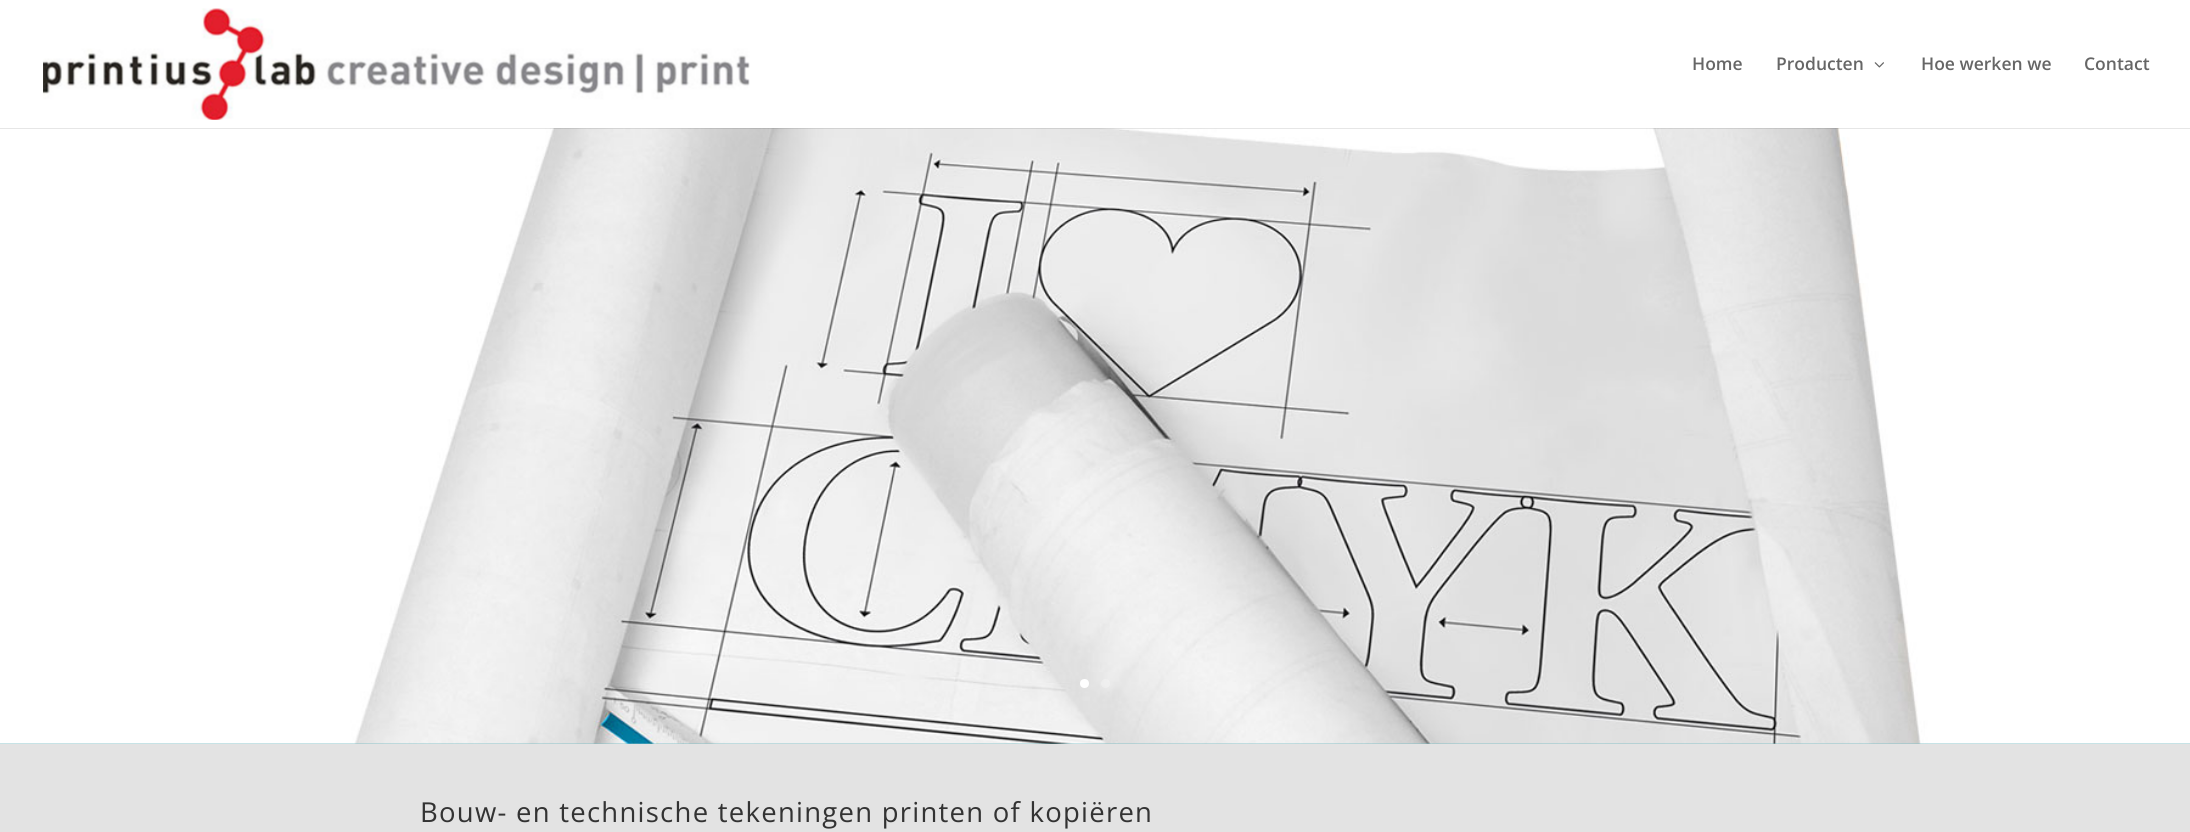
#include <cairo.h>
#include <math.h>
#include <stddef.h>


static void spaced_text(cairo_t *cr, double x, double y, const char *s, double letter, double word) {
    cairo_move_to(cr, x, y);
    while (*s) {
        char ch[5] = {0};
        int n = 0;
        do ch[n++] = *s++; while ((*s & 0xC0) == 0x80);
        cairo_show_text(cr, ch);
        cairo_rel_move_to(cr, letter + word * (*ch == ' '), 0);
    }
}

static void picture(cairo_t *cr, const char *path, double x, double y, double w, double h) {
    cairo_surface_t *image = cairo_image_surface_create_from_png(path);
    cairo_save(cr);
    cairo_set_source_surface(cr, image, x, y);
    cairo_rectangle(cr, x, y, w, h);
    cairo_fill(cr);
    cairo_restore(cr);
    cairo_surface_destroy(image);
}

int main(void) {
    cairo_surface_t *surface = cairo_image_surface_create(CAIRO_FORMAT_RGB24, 2190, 832);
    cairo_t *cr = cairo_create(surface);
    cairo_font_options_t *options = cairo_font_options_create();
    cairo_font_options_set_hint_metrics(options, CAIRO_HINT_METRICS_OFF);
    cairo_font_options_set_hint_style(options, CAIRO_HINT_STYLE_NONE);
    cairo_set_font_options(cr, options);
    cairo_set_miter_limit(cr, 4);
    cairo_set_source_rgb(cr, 0.494, 0.745, 0.773);
    cairo_paint(cr);
    picture(cr, "img3.png", 0, 128, 2190, 616);
    cairo_set_source_rgba(cr, 0, 0, 0, 0.1);
    cairo_rectangle(cr, 0, 128, 2190, 1);
    cairo_fill(cr);
    cairo_set_source_rgb(cr, 1, 1, 1);
    cairo_rectangle(cr, 0, 0, 2190, 128);
    cairo_fill(cr);
    picture(cr, "img1.png", 43, 8, 707, 112);
    cairo_select_font_face(cr, "Open Sans SemiBold", CAIRO_FONT_SLANT_NORMAL, CAIRO_FONT_WEIGHT_NORMAL);
    cairo_set_font_size(cr, 17.5);
    cairo_set_source_rgb(cr, 0.4, 0.4, 0.4);
    cairo_move_to(cr, 1692, 70);
    cairo_show_text(cr, "Home");
    cairo_move_to(cr, 1776, 70);
    cairo_show_text(cr, "Producten");
    picture(cr, "img2.png", 1874, 62, 10, 6);
    cairo_move_to(cr, 1921, 70);
    cairo_show_text(cr, "Hoe werken we");
    cairo_move_to(cr, 2084, 70);
    cairo_show_text(cr, "Contact");
    cairo_set_source_rgb(cr, 1, 1, 1);
    cairo_new_path(cr);
    cairo_arc(cr, 1084.5, 683.5, 4.5, 0, 2 * M_PI);
    cairo_fill(cr);
    cairo_set_source_rgba(cr, 1, 1, 1, 0.25);
    cairo_arc(cr, 1105.5, 683.5, 4.5, 0, 2 * M_PI);
    cairo_fill(cr);
    cairo_set_source_rgb(cr, 0.89, 0.89, 0.89);
    cairo_rectangle(cr, 0, 744, 2190, 88);
    cairo_fill(cr);
    cairo_select_font_face(cr, "Open Sans", CAIRO_FONT_SLANT_NORMAL, CAIRO_FONT_WEIGHT_NORMAL);
    cairo_set_font_size(cr, 27.5);
    cairo_set_source_rgb(cr, 0.2, 0.2, 0.2);
    spaced_text(cr, 420, 822, "Bouw- en technische tekeningen printen of kopiëren", 1.25, 0);
    cairo_surface_write_to_png(surface, "page.png");
    cairo_font_options_destroy(options);
    cairo_destroy(cr);
    cairo_surface_destroy(surface);
    return 0;
}
